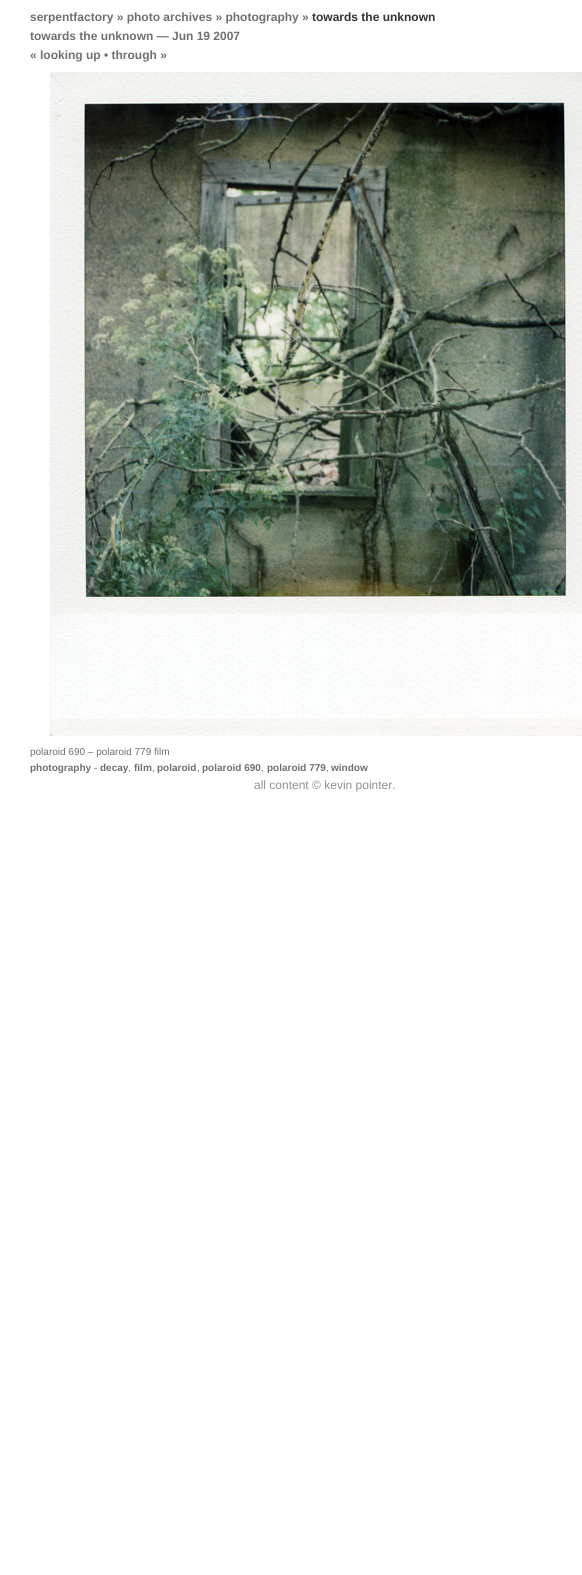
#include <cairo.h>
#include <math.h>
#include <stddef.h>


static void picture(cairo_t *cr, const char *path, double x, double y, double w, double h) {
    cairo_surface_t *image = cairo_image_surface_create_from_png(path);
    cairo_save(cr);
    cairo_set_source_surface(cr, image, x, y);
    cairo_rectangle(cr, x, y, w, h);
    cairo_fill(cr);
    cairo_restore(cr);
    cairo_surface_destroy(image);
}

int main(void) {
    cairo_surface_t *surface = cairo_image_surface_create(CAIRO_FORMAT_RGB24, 582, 1575);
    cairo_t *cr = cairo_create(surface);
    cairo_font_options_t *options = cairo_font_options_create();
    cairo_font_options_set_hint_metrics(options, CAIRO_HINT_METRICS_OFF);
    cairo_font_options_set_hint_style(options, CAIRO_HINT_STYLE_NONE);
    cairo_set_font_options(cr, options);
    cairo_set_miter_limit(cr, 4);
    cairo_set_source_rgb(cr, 1, 1, 1);
    cairo_paint(cr);
    cairo_select_font_face(cr, "Liberation Sans", CAIRO_FONT_SLANT_NORMAL, CAIRO_FONT_WEIGHT_BOLD);
    cairo_set_font_size(cr, 12);
    cairo_set_source_rgb(cr, 0.439, 0.439, 0.439);
    cairo_move_to(cr, 30, 21);
    cairo_show_text(cr, "serpentfactory » photo archives » photography »");
    cairo_set_source_rgb(cr, 0.2, 0.2, 0.2);
    cairo_move_to(cr, 312, 21);
    cairo_show_text(cr, "towards the unknown");
    cairo_set_source_rgb(cr, 0.439, 0.439, 0.439);
    cairo_move_to(cr, 30, 40);
    cairo_show_text(cr, "towards the unknown — Jun 19 2007");
    cairo_move_to(cr, 30, 59);
    cairo_show_text(cr, "« looking up • through »");
    picture(cr, "img1.png", 50, 72, 532, 664);
    cairo_select_font_face(cr, "Liberation Sans", CAIRO_FONT_SLANT_NORMAL, CAIRO_FONT_WEIGHT_NORMAL);
    cairo_set_font_size(cr, 10);
    cairo_move_to(cr, 30, 755);
    cairo_show_text(cr, "polaroid 690 – polaroid 779 film");
    cairo_select_font_face(cr, "Liberation Sans", CAIRO_FONT_SLANT_NORMAL, CAIRO_FONT_WEIGHT_BOLD);
    cairo_move_to(cr, 30, 771);
    cairo_show_text(cr, "photography");
    cairo_select_font_face(cr, "Liberation Sans", CAIRO_FONT_SLANT_NORMAL, CAIRO_FONT_WEIGHT_NORMAL);
    cairo_move_to(cr, 94, 771);
    cairo_show_text(cr, "-");
    cairo_select_font_face(cr, "Liberation Sans", CAIRO_FONT_SLANT_NORMAL, CAIRO_FONT_WEIGHT_BOLD);
    cairo_move_to(cr, 100, 771);
    cairo_show_text(cr, "decay");
    cairo_move_to(cr, 134, 771);
    cairo_show_text(cr, "film");
    cairo_move_to(cr, 157, 771);
    cairo_show_text(cr, "polaroid");
    cairo_move_to(cr, 202, 771);
    cairo_show_text(cr, "polaroid 690");
    cairo_move_to(cr, 267, 771);
    cairo_show_text(cr, "polaroid 779");
    cairo_move_to(cr, 331, 771);
    cairo_show_text(cr, "window");
    cairo_select_font_face(cr, "Liberation Sans", CAIRO_FONT_SLANT_NORMAL, CAIRO_FONT_WEIGHT_NORMAL);
    cairo_move_to(cr, 128, 771);
    cairo_show_text(cr, ",");
    cairo_move_to(cr, 152, 771);
    cairo_show_text(cr, ",");
    cairo_move_to(cr, 197, 771);
    cairo_show_text(cr, ",");
    cairo_move_to(cr, 261, 771);
    cairo_show_text(cr, ",");
    cairo_move_to(cr, 326, 771);
    cairo_show_text(cr, ",");
    cairo_set_font_size(cr, 12);
    cairo_set_source_rgb(cr, 0.565, 0.565, 0.565);
    cairo_move_to(cr, 254, 789);
    cairo_show_text(cr, "all content © kevin pointer.");
    cairo_surface_write_to_png(surface, "page.png");
    cairo_font_options_destroy(options);
    cairo_destroy(cr);
    cairo_surface_destroy(surface);
    return 0;
}
